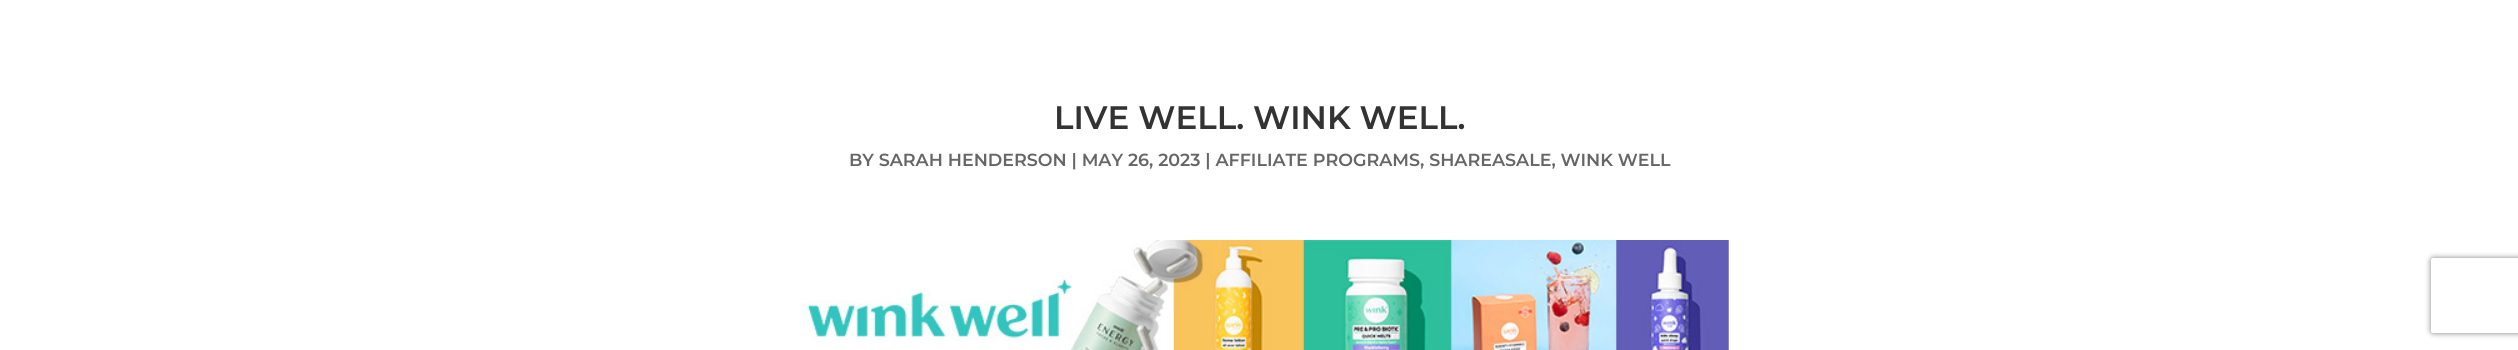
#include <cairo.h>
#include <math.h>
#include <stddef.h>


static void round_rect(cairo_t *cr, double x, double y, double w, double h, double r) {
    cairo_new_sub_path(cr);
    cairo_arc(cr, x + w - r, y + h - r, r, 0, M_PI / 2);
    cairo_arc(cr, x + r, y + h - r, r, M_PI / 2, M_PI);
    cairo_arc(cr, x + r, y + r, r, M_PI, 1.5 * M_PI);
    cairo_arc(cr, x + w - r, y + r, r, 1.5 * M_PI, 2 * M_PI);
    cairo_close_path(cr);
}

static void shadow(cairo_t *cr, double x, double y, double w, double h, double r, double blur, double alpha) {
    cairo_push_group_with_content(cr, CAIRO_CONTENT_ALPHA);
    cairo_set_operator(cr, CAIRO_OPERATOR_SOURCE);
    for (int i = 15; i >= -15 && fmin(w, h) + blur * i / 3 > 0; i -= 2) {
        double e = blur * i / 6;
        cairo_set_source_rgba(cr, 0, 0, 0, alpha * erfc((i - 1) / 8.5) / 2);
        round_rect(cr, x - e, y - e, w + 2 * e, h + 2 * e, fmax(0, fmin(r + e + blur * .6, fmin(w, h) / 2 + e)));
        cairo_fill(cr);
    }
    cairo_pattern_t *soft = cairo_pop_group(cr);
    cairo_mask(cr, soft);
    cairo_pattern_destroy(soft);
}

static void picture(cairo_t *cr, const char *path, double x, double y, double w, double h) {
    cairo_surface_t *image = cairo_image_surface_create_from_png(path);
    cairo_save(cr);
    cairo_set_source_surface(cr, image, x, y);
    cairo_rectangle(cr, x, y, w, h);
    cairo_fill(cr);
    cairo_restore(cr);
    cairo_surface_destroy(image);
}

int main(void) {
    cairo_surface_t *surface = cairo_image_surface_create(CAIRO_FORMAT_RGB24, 2518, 350);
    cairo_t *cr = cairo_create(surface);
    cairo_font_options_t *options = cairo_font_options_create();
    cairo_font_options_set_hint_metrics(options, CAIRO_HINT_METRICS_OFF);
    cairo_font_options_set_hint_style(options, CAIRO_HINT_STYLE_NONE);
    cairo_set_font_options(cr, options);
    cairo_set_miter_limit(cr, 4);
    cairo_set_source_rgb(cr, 1, 1, 1);
    cairo_paint(cr);
    cairo_select_font_face(cr, "Montserrat SemiBold", CAIRO_FONT_SLANT_NORMAL, CAIRO_FONT_WEIGHT_NORMAL);
    cairo_set_font_size(cr, 32.5);
    cairo_set_source_rgb(cr, 0.2, 0.2, 0.2);
    cairo_move_to(cr, 1054, 129);
    cairo_show_text(cr, "LIVE WELL. WINK WELL.");
    cairo_set_font_size(cr, 17.5);
    cairo_set_source_rgb(cr, 0.4, 0.4, 0.4);
    cairo_move_to(cr, 849, 166);
    cairo_show_text(cr, "BY SARAH HENDERSON | MAY 26, 2023 | AFFILIATE PROGRAMS, SHAREASALE, WINK WELL");
    picture(cr, "img1.png", 801, 240, 928, 110);
    cairo_save(cr);
    cairo_set_fill_rule(cr, CAIRO_FILL_RULE_EVEN_ODD);
    cairo_new_path(cr);
    cairo_move_to(cr, 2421, 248);
    cairo_line_to(cr, 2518, 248);
    cairo_line_to(cr, 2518, 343);
    cairo_line_to(cr, 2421, 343);
    cairo_close_path(cr);
    cairo_move_to(cr, 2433.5, 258);
    cairo_line_to(cr, 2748.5, 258);
    cairo_curve_to(cr, 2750, 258, 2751, 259, 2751, 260.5);
    cairo_line_to(cr, 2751, 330.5);
    cairo_curve_to(cr, 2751, 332, 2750, 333, 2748.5, 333);
    cairo_line_to(cr, 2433.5, 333);
    cairo_curve_to(cr, 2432, 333, 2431, 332, 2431, 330.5);
    cairo_line_to(cr, 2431, 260.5);
    cairo_curve_to(cr, 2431, 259, 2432, 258, 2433.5, 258);
    cairo_close_path(cr);
    cairo_clip(cr);
    cairo_set_source_rgb(cr, 0.502, 0.502, 0.502);
    shadow(cr, 2431, 258, 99, 75, 2.5, 3, 1);
    cairo_restore(cr);
    cairo_surface_write_to_png(surface, "page.png");
    cairo_font_options_destroy(options);
    cairo_destroy(cr);
    cairo_surface_destroy(surface);
    return 0;
}
